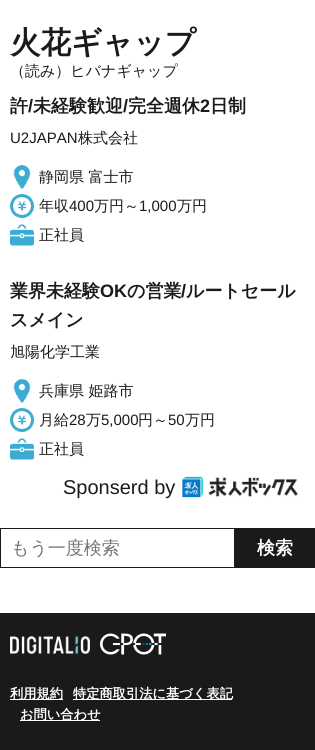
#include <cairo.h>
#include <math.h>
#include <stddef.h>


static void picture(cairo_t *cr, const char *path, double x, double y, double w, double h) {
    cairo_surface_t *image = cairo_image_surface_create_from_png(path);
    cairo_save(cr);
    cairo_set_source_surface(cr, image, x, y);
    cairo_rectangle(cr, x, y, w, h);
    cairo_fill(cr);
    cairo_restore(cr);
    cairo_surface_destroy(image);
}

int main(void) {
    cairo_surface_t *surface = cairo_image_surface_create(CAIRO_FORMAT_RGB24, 315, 750);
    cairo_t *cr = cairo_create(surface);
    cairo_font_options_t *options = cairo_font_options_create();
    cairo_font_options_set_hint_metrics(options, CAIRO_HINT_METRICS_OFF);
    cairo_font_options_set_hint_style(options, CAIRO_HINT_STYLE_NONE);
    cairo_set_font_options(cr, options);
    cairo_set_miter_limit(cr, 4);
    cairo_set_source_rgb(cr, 1, 1, 1);
    cairo_paint(cr);
    cairo_select_font_face(cr, "WenQuanYi Zen Hei", CAIRO_FONT_SLANT_NORMAL, CAIRO_FONT_WEIGHT_BOLD);
    cairo_set_font_size(cr, 30.5);
    cairo_set_source_rgb(cr, 0.102, 0.102, 0.102);
    cairo_move_to(cr, 10, 53);
    cairo_show_text(cr, "火花ギャップ");
    cairo_select_font_face(cr, "WenQuanYi Zen Hei Medium", CAIRO_FONT_SLANT_NORMAL, CAIRO_FONT_WEIGHT_NORMAL);
    cairo_set_font_size(cr, 15);
    cairo_move_to(cr, 10, 76);
    cairo_show_text(cr, "（読み）ヒバナギャップ");
    cairo_select_font_face(cr, "WenQuanYi Zen Hei", CAIRO_FONT_SLANT_NORMAL, CAIRO_FONT_WEIGHT_BOLD);
    cairo_set_font_size(cr, 18);
    cairo_move_to(cr, 10, 112);
    cairo_show_text(cr, "許");
    cairo_select_font_face(cr, "Liberation Sans", CAIRO_FONT_SLANT_NORMAL, CAIRO_FONT_WEIGHT_BOLD);
    cairo_move_to(cr, 28, 112);
    cairo_show_text(cr, "/");
    cairo_select_font_face(cr, "WenQuanYi Zen Hei", CAIRO_FONT_SLANT_NORMAL, CAIRO_FONT_WEIGHT_BOLD);
    cairo_move_to(cr, 33, 112);
    cairo_show_text(cr, "未経験歓迎");
    cairo_select_font_face(cr, "Liberation Sans", CAIRO_FONT_SLANT_NORMAL, CAIRO_FONT_WEIGHT_BOLD);
    cairo_move_to(cr, 123, 112);
    cairo_show_text(cr, "/");
    cairo_select_font_face(cr, "WenQuanYi Zen Hei", CAIRO_FONT_SLANT_NORMAL, CAIRO_FONT_WEIGHT_BOLD);
    cairo_move_to(cr, 128, 112);
    cairo_show_text(cr, "完全週休");
    cairo_select_font_face(cr, "Liberation Sans", CAIRO_FONT_SLANT_NORMAL, CAIRO_FONT_WEIGHT_BOLD);
    cairo_move_to(cr, 200, 112);
    cairo_show_text(cr, "2");
    cairo_select_font_face(cr, "WenQuanYi Zen Hei", CAIRO_FONT_SLANT_NORMAL, CAIRO_FONT_WEIGHT_BOLD);
    cairo_move_to(cr, 210, 112);
    cairo_show_text(cr, "日制");
    cairo_select_font_face(cr, "Liberation Sans", CAIRO_FONT_SLANT_NORMAL, CAIRO_FONT_WEIGHT_NORMAL);
    cairo_set_font_size(cr, 15);
    cairo_move_to(cr, 10, 143);
    cairo_show_text(cr, "U2JAPAN");
    cairo_select_font_face(cr, "WenQuanYi Zen Hei Medium", CAIRO_FONT_SLANT_NORMAL, CAIRO_FONT_WEIGHT_NORMAL);
    cairo_move_to(cr, 78, 143);
    cairo_show_text(cr, "株式会社");
    picture(cr, "img1.png", 13, 165, 18, 24);
    cairo_move_to(cr, 39, 182);
    cairo_show_text(cr, "静岡県 富士市");
    picture(cr, "img2.png", 10, 194, 24, 24);
    cairo_move_to(cr, 39, 211);
    cairo_show_text(cr, "年収");
    cairo_select_font_face(cr, "Liberation Sans", CAIRO_FONT_SLANT_NORMAL, CAIRO_FONT_WEIGHT_NORMAL);
    cairo_move_to(cr, 69, 211);
    cairo_show_text(cr, "400");
    cairo_select_font_face(cr, "WenQuanYi Zen Hei Medium", CAIRO_FONT_SLANT_NORMAL, CAIRO_FONT_WEIGHT_NORMAL);
    cairo_move_to(cr, 94, 211);
    cairo_show_text(cr, "万円～");
    cairo_select_font_face(cr, "Liberation Sans", CAIRO_FONT_SLANT_NORMAL, CAIRO_FONT_WEIGHT_NORMAL);
    cairo_move_to(cr, 139, 211);
    cairo_show_text(cr, "1,000");
    cairo_select_font_face(cr, "WenQuanYi Zen Hei Medium", CAIRO_FONT_SLANT_NORMAL, CAIRO_FONT_WEIGHT_NORMAL);
    cairo_move_to(cr, 177, 211);
    cairo_show_text(cr, "万円");
    picture(cr, "img3.png", 10, 224, 24, 22);
    cairo_move_to(cr, 39, 240);
    cairo_show_text(cr, "正社員");
    cairo_select_font_face(cr, "WenQuanYi Zen Hei", CAIRO_FONT_SLANT_NORMAL, CAIRO_FONT_WEIGHT_BOLD);
    cairo_set_font_size(cr, 18);
    cairo_move_to(cr, 10, 297);
    cairo_show_text(cr, "業界未経験");
    cairo_select_font_face(cr, "Liberation Sans", CAIRO_FONT_SLANT_NORMAL, CAIRO_FONT_WEIGHT_BOLD);
    cairo_move_to(cr, 100, 297);
    cairo_show_text(cr, "OK");
    cairo_select_font_face(cr, "WenQuanYi Zen Hei", CAIRO_FONT_SLANT_NORMAL, CAIRO_FONT_WEIGHT_BOLD);
    cairo_move_to(cr, 127, 297);
    cairo_show_text(cr, "の営業");
    cairo_select_font_face(cr, "Liberation Sans", CAIRO_FONT_SLANT_NORMAL, CAIRO_FONT_WEIGHT_BOLD);
    cairo_move_to(cr, 181, 297);
    cairo_show_text(cr, "/");
    cairo_select_font_face(cr, "WenQuanYi Zen Hei", CAIRO_FONT_SLANT_NORMAL, CAIRO_FONT_WEIGHT_BOLD);
    cairo_move_to(cr, 186, 297);
    cairo_show_text(cr, "ルートセール");
    cairo_move_to(cr, 10, 326);
    cairo_show_text(cr, "スメイン");
    cairo_select_font_face(cr, "WenQuanYi Zen Hei Medium", CAIRO_FONT_SLANT_NORMAL, CAIRO_FONT_WEIGHT_NORMAL);
    cairo_set_font_size(cr, 15);
    cairo_move_to(cr, 10, 357);
    cairo_show_text(cr, "旭陽化学工業");
    picture(cr, "img1.png", 13, 379, 18, 24);
    cairo_move_to(cr, 39, 396);
    cairo_show_text(cr, "兵庫県 姫路市");
    picture(cr, "img2.png", 10, 408, 24, 24);
    cairo_move_to(cr, 39, 425);
    cairo_show_text(cr, "月給");
    cairo_select_font_face(cr, "Liberation Sans", CAIRO_FONT_SLANT_NORMAL, CAIRO_FONT_WEIGHT_NORMAL);
    cairo_move_to(cr, 69, 425);
    cairo_show_text(cr, "28");
    cairo_select_font_face(cr, "WenQuanYi Zen Hei Medium", CAIRO_FONT_SLANT_NORMAL, CAIRO_FONT_WEIGHT_NORMAL);
    cairo_move_to(cr, 86, 425);
    cairo_show_text(cr, "万");
    cairo_select_font_face(cr, "Liberation Sans", CAIRO_FONT_SLANT_NORMAL, CAIRO_FONT_WEIGHT_NORMAL);
    cairo_move_to(cr, 101, 425);
    cairo_show_text(cr, "5,000");
    cairo_select_font_face(cr, "WenQuanYi Zen Hei Medium", CAIRO_FONT_SLANT_NORMAL, CAIRO_FONT_WEIGHT_NORMAL);
    cairo_move_to(cr, 138, 425);
    cairo_show_text(cr, "円～");
    cairo_select_font_face(cr, "Liberation Sans", CAIRO_FONT_SLANT_NORMAL, CAIRO_FONT_WEIGHT_NORMAL);
    cairo_move_to(cr, 168, 425);
    cairo_show_text(cr, "50");
    cairo_select_font_face(cr, "WenQuanYi Zen Hei Medium", CAIRO_FONT_SLANT_NORMAL, CAIRO_FONT_WEIGHT_NORMAL);
    cairo_move_to(cr, 185, 425);
    cairo_show_text(cr, "万円");
    picture(cr, "img3.png", 10, 438, 24, 22);
    cairo_move_to(cr, 39, 454);
    cairo_show_text(cr, "正社員");
    cairo_select_font_face(cr, "Liberation Sans", CAIRO_FONT_SLANT_NORMAL, CAIRO_FONT_WEIGHT_NORMAL);
    cairo_set_font_size(cr, 20);
    cairo_move_to(cr, 63, 494);
    cairo_show_text(cr, "Sponserd by");
    picture(cr, "img4.png", 182, 476, 116, 22);
    cairo_rectangle(cr, 0.5, 528.5, 234, 39);
    cairo_set_line_width(cr, 1);
    cairo_stroke(cr);
    cairo_select_font_face(cr, "WenQuanYi Zen Hei Medium", CAIRO_FONT_SLANT_NORMAL, CAIRO_FONT_WEIGHT_NORMAL);
    cairo_set_font_size(cr, 18);
    cairo_set_source_rgb(cr, 0.459, 0.459, 0.459);
    cairo_move_to(cr, 11, 554);
    cairo_show_text(cr, "もう一度検索");
    cairo_set_source_rgb(cr, 0.102, 0.102, 0.102);
    cairo_rectangle(cr, 235, 528, 80, 40);
    cairo_fill(cr);
    cairo_select_font_face(cr, "WenQuanYi Zen Hei", CAIRO_FONT_SLANT_NORMAL, CAIRO_FONT_WEIGHT_BOLD);
    cairo_set_source_rgb(cr, 1, 1, 1);
    cairo_move_to(cr, 257, 554);
    cairo_show_text(cr, "検索");
    cairo_set_source_rgb(cr, 0.102, 0.102, 0.102);
    cairo_rectangle(cr, 0, 613, 315, 137);
    cairo_fill(cr);
    picture(cr, "img5.png", 10, 636, 80, 18);
    picture(cr, "img6.png", 100, 633, 66, 22);
    cairo_set_source_rgb(cr, 1, 1, 1);
    cairo_rectangle(cr, 10, 699, 53, 1);
    cairo_fill(cr);
    cairo_set_font_size(cr, 13.25);
    cairo_move_to(cr, 10, 698);
    cairo_show_text(cr, "利用規約");
    cairo_rectangle(cr, 73, 699, 159, 1);
    cairo_fill(cr);
    cairo_move_to(cr, 73, 698);
    cairo_show_text(cr, "特定商取引法に基づく表記");
    cairo_rectangle(cr, 20, 720, 80, 1);
    cairo_fill(cr);
    cairo_move_to(cr, 20, 719);
    cairo_show_text(cr, "お問い合わせ");
    cairo_surface_write_to_png(surface, "page.png");
    cairo_font_options_destroy(options);
    cairo_destroy(cr);
    cairo_surface_destroy(surface);
    return 0;
}
